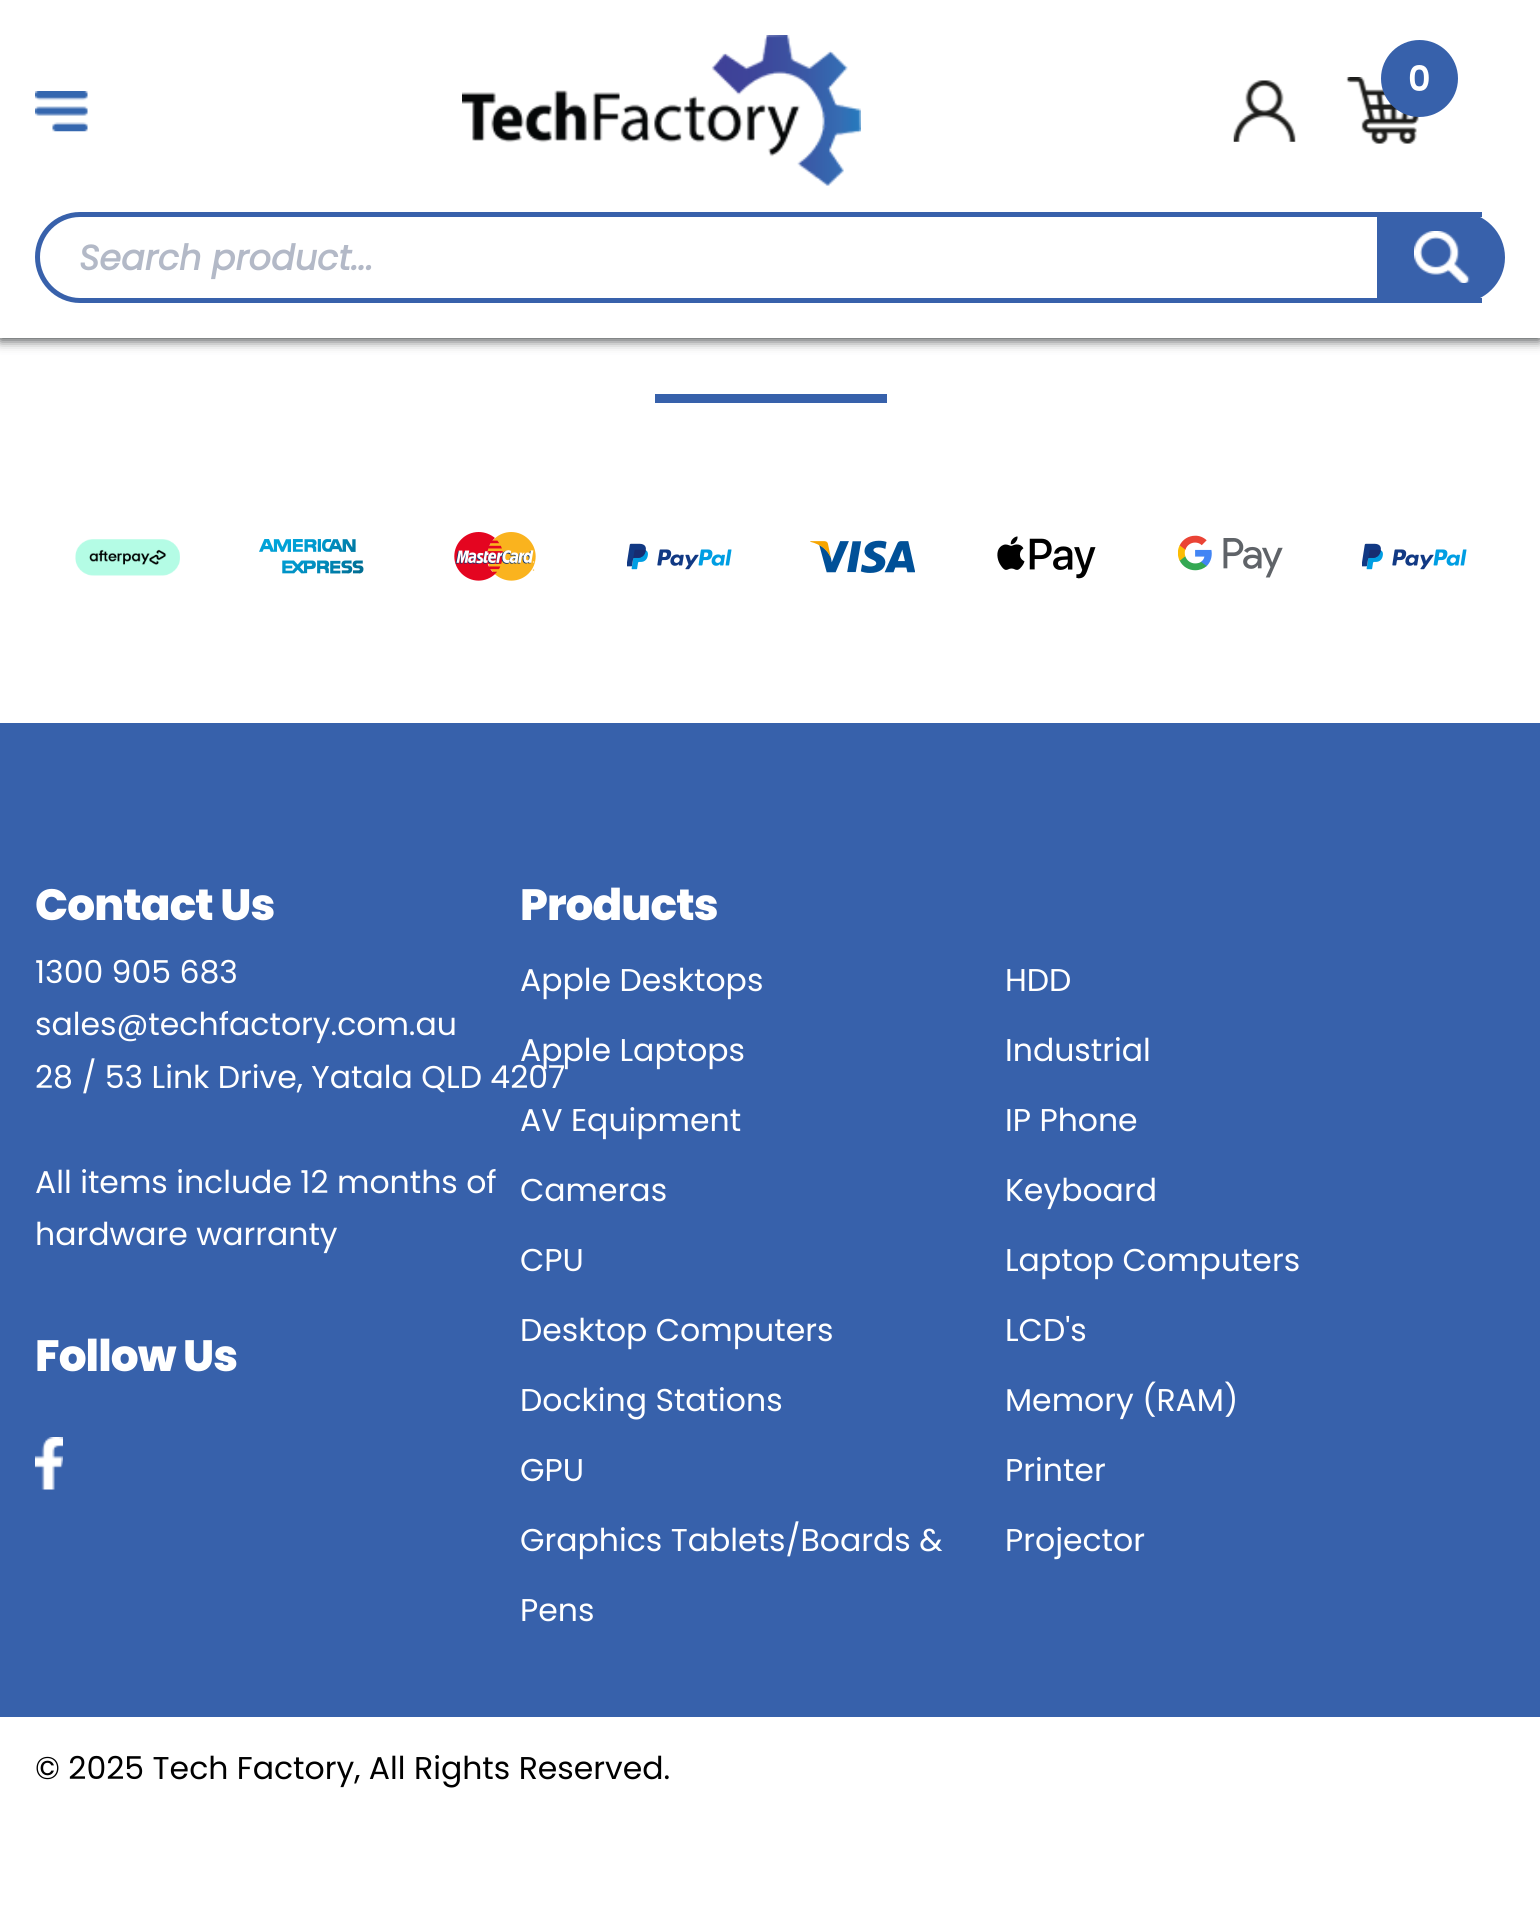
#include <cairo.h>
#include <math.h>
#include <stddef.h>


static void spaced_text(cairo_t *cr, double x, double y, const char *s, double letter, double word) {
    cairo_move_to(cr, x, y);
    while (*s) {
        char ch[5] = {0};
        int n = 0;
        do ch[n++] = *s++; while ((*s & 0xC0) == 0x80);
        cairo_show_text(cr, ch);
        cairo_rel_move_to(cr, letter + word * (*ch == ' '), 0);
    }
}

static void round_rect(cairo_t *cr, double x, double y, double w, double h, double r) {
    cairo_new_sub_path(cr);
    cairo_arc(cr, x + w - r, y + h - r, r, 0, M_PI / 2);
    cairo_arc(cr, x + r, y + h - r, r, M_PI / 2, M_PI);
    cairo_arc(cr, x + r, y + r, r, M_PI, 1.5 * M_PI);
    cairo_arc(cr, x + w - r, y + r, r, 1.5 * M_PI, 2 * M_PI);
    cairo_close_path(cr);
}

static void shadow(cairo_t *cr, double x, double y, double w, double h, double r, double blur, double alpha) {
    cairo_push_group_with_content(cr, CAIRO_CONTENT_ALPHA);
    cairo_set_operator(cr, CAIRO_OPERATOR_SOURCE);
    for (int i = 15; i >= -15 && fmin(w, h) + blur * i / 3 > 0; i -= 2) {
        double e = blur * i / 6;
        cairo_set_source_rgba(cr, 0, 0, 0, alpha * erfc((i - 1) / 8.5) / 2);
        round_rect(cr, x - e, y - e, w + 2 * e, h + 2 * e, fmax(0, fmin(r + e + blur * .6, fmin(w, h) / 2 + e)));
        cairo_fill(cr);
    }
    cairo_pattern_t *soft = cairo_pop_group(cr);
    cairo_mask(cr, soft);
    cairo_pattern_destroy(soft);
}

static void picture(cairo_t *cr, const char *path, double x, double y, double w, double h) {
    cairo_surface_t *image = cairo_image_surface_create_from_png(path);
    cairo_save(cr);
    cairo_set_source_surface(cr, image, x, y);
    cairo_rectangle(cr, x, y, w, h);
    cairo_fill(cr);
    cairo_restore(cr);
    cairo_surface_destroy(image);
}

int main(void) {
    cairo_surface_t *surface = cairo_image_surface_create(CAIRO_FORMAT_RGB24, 1540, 1906);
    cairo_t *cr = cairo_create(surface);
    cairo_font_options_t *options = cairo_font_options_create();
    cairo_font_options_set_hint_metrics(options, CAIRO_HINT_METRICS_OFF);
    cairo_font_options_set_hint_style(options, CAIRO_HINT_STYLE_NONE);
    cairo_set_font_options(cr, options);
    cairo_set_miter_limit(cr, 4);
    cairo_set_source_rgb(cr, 1, 1, 1);
    cairo_paint(cr);
    cairo_set_source_rgb(cr, 0.231, 0.247, 0.255);
    shadow(cr, 0, 2, 1540, 338, 0, 6, 1);
    cairo_set_source_rgb(cr, 1, 1, 1);
    cairo_rectangle(cr, 0, 0, 1540, 338);
    cairo_fill(cr);
    picture(cr, "img1.png", 462, 35, 399, 151);
    picture(cr, "img2.png", 1233, 80, 63, 62);
    picture(cr, "img3.png", 1346, 77, 73, 67);
    cairo_set_source_rgb(cr, 0.216, 0.38, 0.671);
    cairo_arc(cr, 1419.5, 78.5, 38.5, 0, 2 * M_PI);
    cairo_fill(cr);
    cairo_select_font_face(cr, "Poppins SemiBold", CAIRO_FONT_SLANT_NORMAL, CAIRO_FONT_WEIGHT_NORMAL);
    cairo_set_font_size(cr, 35);
    cairo_set_source_rgb(cr, 1, 1, 1);
    cairo_move_to(cr, 1408, 91);
    cairo_show_text(cr, "0");
    picture(cr, "img4.png", 35, 91, 53, 41);
    cairo_set_source_rgb(cr, 0.22, 0.38, 0.671);
    cairo_set_fill_rule(cr, CAIRO_FILL_RULE_EVEN_ODD);
    cairo_new_path(cr);
    cairo_move_to(cr, 80, 212);
    cairo_line_to(cr, 1377, 212);
    cairo_line_to(cr, 1377, 303);
    cairo_line_to(cr, 80, 303);
    cairo_curve_to(cr, 55, 303, 35, 282, 35, 257);
    cairo_curve_to(cr, 35, 232, 55, 212, 80, 212);
    cairo_close_path(cr);
    cairo_move_to(cr, 80, 217);
    cairo_line_to(cr, 1377, 217);
    cairo_line_to(cr, 1377, 298);
    cairo_line_to(cr, 80, 298);
    cairo_curve_to(cr, 58, 298, 40, 279, 40, 257);
    cairo_curve_to(cr, 40, 235, 58, 217, 80, 217);
    cairo_close_path(cr);
    cairo_fill(cr);
    cairo_select_font_face(cr, "Poppins", CAIRO_FONT_SLANT_ITALIC, CAIRO_FONT_WEIGHT_BOLD);
    cairo_set_source_rgb(cr, 0.702, 0.725, 0.78);
    cairo_move_to(cr, 79, 270);
    cairo_show_text(cr, "Search product...");
    cairo_set_source_rgb(cr, 0.22, 0.38, 0.671);
    cairo_new_path(cr);
    cairo_move_to(cr, 1377, 212);
    cairo_line_to(cr, 1459.5, 212);
    cairo_curve_to(cr, 1484.5, 212, 1505, 232.5, 1505, 257.5);
    cairo_curve_to(cr, 1505, 282.5, 1484.5, 303, 1459.5, 303);
    cairo_line_to(cr, 1377, 303);
    cairo_close_path(cr);
    cairo_fill(cr);
    cairo_rectangle(cr, 1460, 212, 22, 5);
    cairo_fill(cr);
    cairo_rectangle(cr, 1460, 298, 22, 5);
    cairo_fill(cr);
    picture(cr, "img5.png", 1414, 231, 56, 52);
    cairo_set_source_rgb(cr, 0.216, 0.38, 0.671);
    cairo_rectangle(cr, 655, 394, 232, 9);
    cairo_fill(cr);
    picture(cr, "img6.png", 75, 539, 105, 37);
    picture(cr, "img7.png", 259, 539, 105, 35);
    picture(cr, "img8.png", 454, 532, 82, 49);
    picture(cr, "img9.png", 627, 543, 105, 27);
    picture(cr, "img10.png", 810, 540, 105, 33);
    picture(cr, "img11.png", 997, 536, 99, 43);
    picture(cr, "img12.png", 1178, 535, 105, 43);
    picture(cr, "img9.png", 1362, 543, 105, 27);
    cairo_rectangle(cr, 0, 723, 1540, 994);
    cairo_fill(cr);
    cairo_select_font_face(cr, "Poppins ExtraBold", CAIRO_FONT_SLANT_NORMAL, CAIRO_FONT_WEIGHT_NORMAL);
    cairo_set_font_size(cr, 43.75);
    cairo_set_source_rgb(cr, 1, 1, 1);
    spaced_text(cr, 35, 920, "Contact Us", -0.9, 0);
    cairo_select_font_face(cr, "Poppins", CAIRO_FONT_SLANT_NORMAL, CAIRO_FONT_WEIGHT_NORMAL);
    cairo_set_font_size(cr, 31.5);
    cairo_move_to(cr, 35, 983);
    cairo_show_text(cr, "1300 905 683");
    cairo_move_to(cr, 35, 1035);
    cairo_show_text(cr, "sales@techfactory.com.au");
    cairo_move_to(cr, 35, 1088);
    cairo_show_text(cr, "28 / 53 Link Drive, Yatala QLD 4207");
    cairo_move_to(cr, 35, 1193);
    cairo_show_text(cr, "All items include 12 months of");
    cairo_move_to(cr, 35, 1245);
    cairo_show_text(cr, "hardware warranty");
    cairo_select_font_face(cr, "Poppins ExtraBold", CAIRO_FONT_SLANT_NORMAL, CAIRO_FONT_WEIGHT_NORMAL);
    cairo_set_font_size(cr, 43.75);
    spaced_text(cr, 35, 1371, "Follow Us", -0.9, 0);
    picture(cr, "img13.png", 35, 1437, 28, 53);
    spaced_text(cr, 520, 920, "Products", -0.9, 0);
    cairo_select_font_face(cr, "Poppins", CAIRO_FONT_SLANT_NORMAL, CAIRO_FONT_WEIGHT_NORMAL);
    cairo_set_font_size(cr, 31.5);
    cairo_move_to(cr, 520, 991);
    cairo_show_text(cr, "Apple Desktops");
    cairo_move_to(cr, 520, 1061);
    cairo_show_text(cr, "Apple Laptops");
    cairo_move_to(cr, 520, 1131);
    cairo_show_text(cr, "AV Equipment");
    cairo_move_to(cr, 520, 1201);
    cairo_show_text(cr, "Cameras");
    cairo_move_to(cr, 520, 1271);
    cairo_show_text(cr, "CPU");
    cairo_move_to(cr, 520, 1341);
    cairo_show_text(cr, "Desktop Computers");
    cairo_move_to(cr, 520, 1411);
    cairo_show_text(cr, "Docking Stations");
    cairo_move_to(cr, 520, 1481);
    cairo_show_text(cr, "GPU");
    cairo_move_to(cr, 520, 1551);
    cairo_show_text(cr, "Graphics Tablets/Boards &");
    cairo_move_to(cr, 520, 1621);
    cairo_show_text(cr, "Pens");
    cairo_move_to(cr, 1005, 991);
    cairo_show_text(cr, "HDD");
    cairo_move_to(cr, 1005, 1061);
    cairo_show_text(cr, "Industrial");
    cairo_move_to(cr, 1005, 1131);
    cairo_show_text(cr, "IP Phone");
    cairo_move_to(cr, 1005, 1201);
    cairo_show_text(cr, "Keyboard");
    cairo_move_to(cr, 1005, 1271);
    cairo_show_text(cr, "Laptop Computers");
    cairo_move_to(cr, 1005, 1341);
    cairo_show_text(cr, "LCD's");
    cairo_move_to(cr, 1005, 1411);
    cairo_show_text(cr, "Memory (RAM)");
    cairo_move_to(cr, 1005, 1481);
    cairo_show_text(cr, "Printer");
    cairo_move_to(cr, 1005, 1551);
    cairo_show_text(cr, "Projector");
    cairo_set_source_rgb(cr, 0, 0, 0);
    cairo_move_to(cr, 35, 1779);
    cairo_show_text(cr, "© 2025 Tech Factory, All Rights Reserved.");
    cairo_surface_write_to_png(surface, "page.png");
    cairo_font_options_destroy(options);
    cairo_destroy(cr);
    cairo_surface_destroy(surface);
    return 0;
}
